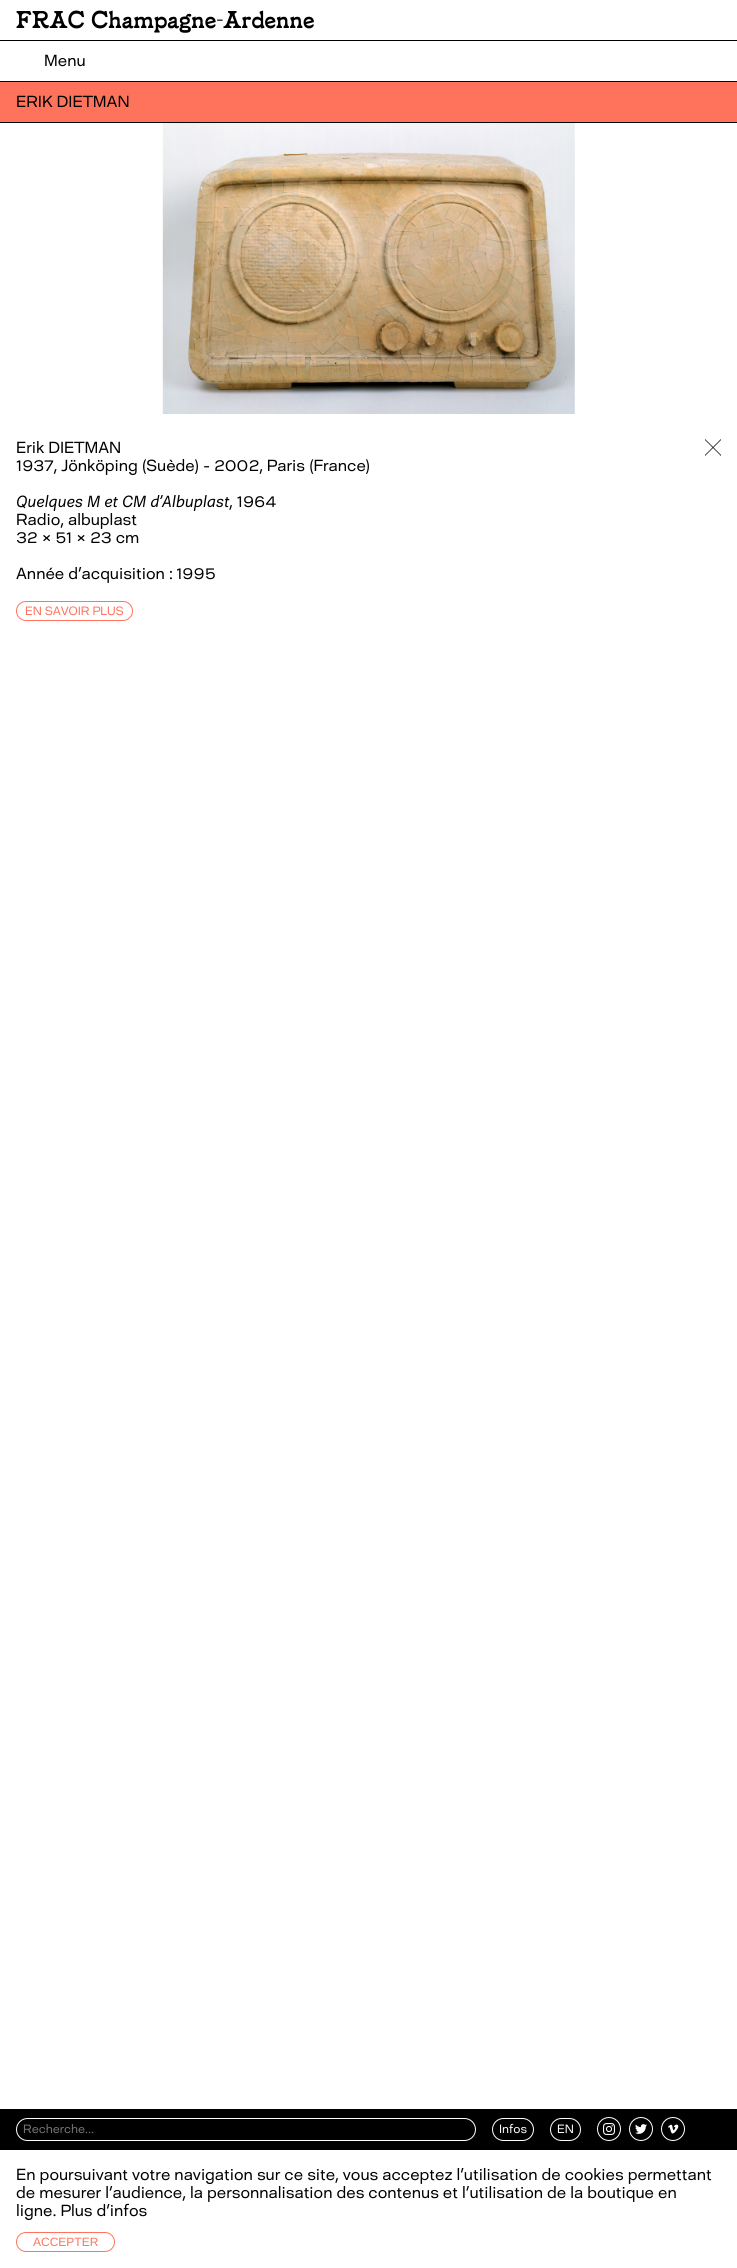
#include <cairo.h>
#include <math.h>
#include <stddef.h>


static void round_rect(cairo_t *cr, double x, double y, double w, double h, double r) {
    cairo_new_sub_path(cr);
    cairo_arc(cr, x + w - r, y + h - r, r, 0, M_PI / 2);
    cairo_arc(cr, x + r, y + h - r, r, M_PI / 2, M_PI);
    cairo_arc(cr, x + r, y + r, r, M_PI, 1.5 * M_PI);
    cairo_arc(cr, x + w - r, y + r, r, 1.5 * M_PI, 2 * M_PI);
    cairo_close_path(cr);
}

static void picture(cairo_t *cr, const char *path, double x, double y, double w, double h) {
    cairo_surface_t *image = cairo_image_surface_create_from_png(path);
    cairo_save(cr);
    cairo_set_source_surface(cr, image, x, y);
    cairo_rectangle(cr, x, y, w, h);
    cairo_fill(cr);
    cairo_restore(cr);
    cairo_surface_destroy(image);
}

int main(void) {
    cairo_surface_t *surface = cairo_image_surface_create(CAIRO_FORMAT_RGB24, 737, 2268);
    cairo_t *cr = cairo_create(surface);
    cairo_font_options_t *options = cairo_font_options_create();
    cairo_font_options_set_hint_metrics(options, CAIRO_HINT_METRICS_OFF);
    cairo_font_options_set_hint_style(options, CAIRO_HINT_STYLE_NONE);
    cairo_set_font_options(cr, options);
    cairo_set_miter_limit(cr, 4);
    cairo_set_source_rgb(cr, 1, 1, 1);
    cairo_paint(cr);
    cairo_select_font_face(cr, "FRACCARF", CAIRO_FONT_SLANT_NORMAL, CAIRO_FONT_WEIGHT_NORMAL);
    cairo_set_font_size(cr, 24);
    cairo_set_source_rgb(cr, 0, 0, 0);
    cairo_move_to(cr, 16, 28);
    cairo_show_text(cr, "FRAC Champagne-Ardenne");
    cairo_rectangle(cr, 0, 40, 737, 1);
    cairo_fill(cr);
    cairo_rectangle(cr, 0, 81, 737, 1);
    cairo_fill(cr);
    cairo_select_font_face(cr, "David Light", CAIRO_FONT_SLANT_NORMAL, CAIRO_FONT_WEIGHT_NORMAL);
    cairo_set_font_size(cr, 16);
    cairo_move_to(cr, 44, 66);
    cairo_show_text(cr, "Menu");
    cairo_set_source_rgb(cr, 1, 0.451, 0.361);
    cairo_rectangle(cr, 0, 82, 737, 40);
    cairo_fill(cr);
    cairo_set_source_rgb(cr, 0, 0, 0);
    cairo_rectangle(cr, 0, 122, 737, 1);
    cairo_fill(cr);
    cairo_move_to(cr, 16, 107);
    cairo_show_text(cr, "ERIK DIETMAN");
    picture(cr, "img1.png", 162, 123, 413, 291);
    cairo_move_to(cr, 16, 453);
    cairo_show_text(cr, "Erik DIETMAN");
    cairo_move_to(cr, 16, 471);
    cairo_show_text(cr, "1937, Jönköping (Suède) - 2002, Paris (France)");
    cairo_select_font_face(cr, "David Light", CAIRO_FONT_SLANT_ITALIC, CAIRO_FONT_WEIGHT_NORMAL);
    cairo_move_to(cr, 16, 507);
    cairo_show_text(cr, "Quelques M et CM d'Albuplast");
    cairo_select_font_face(cr, "David Light", CAIRO_FONT_SLANT_NORMAL, CAIRO_FONT_WEIGHT_NORMAL);
    cairo_move_to(cr, 229, 507);
    cairo_show_text(cr, ", 1964");
    cairo_move_to(cr, 16, 525);
    cairo_show_text(cr, "Radio, albuplast");
    cairo_move_to(cr, 16, 543);
    cairo_show_text(cr, "32 × 51 × 23 cm");
    cairo_move_to(cr, 16, 579);
    cairo_show_text(cr, "Année d’acquisition : 1995");
    round_rect(cr, 16.5, 601.5, 116, 19, 9.5);
    cairo_set_source_rgb(cr, 1, 0.451, 0.361);
    cairo_set_line_width(cr, 1);
    cairo_stroke(cr);
    cairo_set_font_size(cr, 12);
    cairo_move_to(cr, 25, 615);
    cairo_show_text(cr, "EN SAVOIR PLUS");
    cairo_save(cr);
    cairo_rectangle(cr, 705, 435, 16, 24);
    cairo_clip(cr);
    cairo_set_source_rgb(cr, 0, 0, 0);
    cairo_new_path(cr);
    cairo_move_to(cr, 702, 436);
    cairo_line_to(cr, 724.5, 458.5);
    cairo_line_to(cr, 724, 459);
    cairo_line_to(cr, 701.5, 436.5);
    cairo_close_path(cr);
    cairo_fill(cr);
    cairo_new_path(cr);
    cairo_move_to(cr, 701.5, 458.5);
    cairo_line_to(cr, 724, 436);
    cairo_line_to(cr, 724.5, 436.5);
    cairo_line_to(cr, 702, 459);
    cairo_close_path(cr);
    cairo_fill(cr);
    cairo_restore(cr);
    cairo_set_source_rgb(cr, 0, 0, 0);
    cairo_rectangle(cr, 0, 2109, 737, 41);
    cairo_fill(cr);
    round_rect(cr, 16.5, 2118.5, 459, 22, 11);
    cairo_set_source_rgb(cr, 1, 1, 1);
    cairo_stroke(cr);
    cairo_set_source_rgb(cr, 0.459, 0.459, 0.459);
    cairo_move_to(cr, 23, 2133);
    cairo_show_text(cr, "Recherche...");
    round_rect(cr, 492.5, 2118.5, 41, 22, 11);
    cairo_set_source_rgb(cr, 1, 1, 1);
    cairo_stroke(cr);
    cairo_move_to(cr, 499, 2133);
    cairo_show_text(cr, "Infos");
    round_rect(cr, 550.5, 2118.5, 30, 22, 11);
    cairo_stroke(cr);
    cairo_move_to(cr, 557, 2133);
    cairo_show_text(cr, "EN");
    cairo_new_path(cr);
    cairo_arc(cr, 609, 2129, 11.5, 0, 2 * M_PI);
    cairo_stroke(cr);
    picture(cr, "img2.png", 603, 2123, 12, 12);
    cairo_arc(cr, 641, 2129, 11.5, 0, 2 * M_PI);
    cairo_stroke(cr);
    picture(cr, "img3.png", 635, 2124, 12, 10);
    cairo_arc(cr, 673, 2129, 11.5, 0, 2 * M_PI);
    cairo_stroke(cr);
    picture(cr, "img4.png", 668, 2124, 11, 10);
    cairo_set_font_size(cr, 16);
    cairo_set_source_rgb(cr, 0, 0, 0);
    cairo_move_to(cr, 16, 2180);
    cairo_show_text(cr, "En poursuivant votre navigation sur ce site, vous acceptez l’utilisation de cookies permettant");
    cairo_move_to(cr, 16, 2198);
    cairo_show_text(cr, "de mesurer l’audience, la personnalisation des contenus et l’utilisation de la boutique en");
    cairo_move_to(cr, 16, 2216);
    cairo_show_text(cr, "ligne. Plus d’infos");
    round_rect(cr, 16.5, 2232.5, 98, 19, 9.5);
    cairo_set_source_rgb(cr, 1, 0.451, 0.361);
    cairo_stroke(cr);
    cairo_select_font_face(cr, "Liberation Sans", CAIRO_FONT_SLANT_NORMAL, CAIRO_FONT_WEIGHT_NORMAL);
    cairo_set_font_size(cr, 12);
    cairo_move_to(cr, 33, 2246);
    cairo_show_text(cr, "ACCEPTER");
    cairo_surface_write_to_png(surface, "page.png");
    cairo_font_options_destroy(options);
    cairo_destroy(cr);
    cairo_surface_destroy(surface);
    return 0;
}
